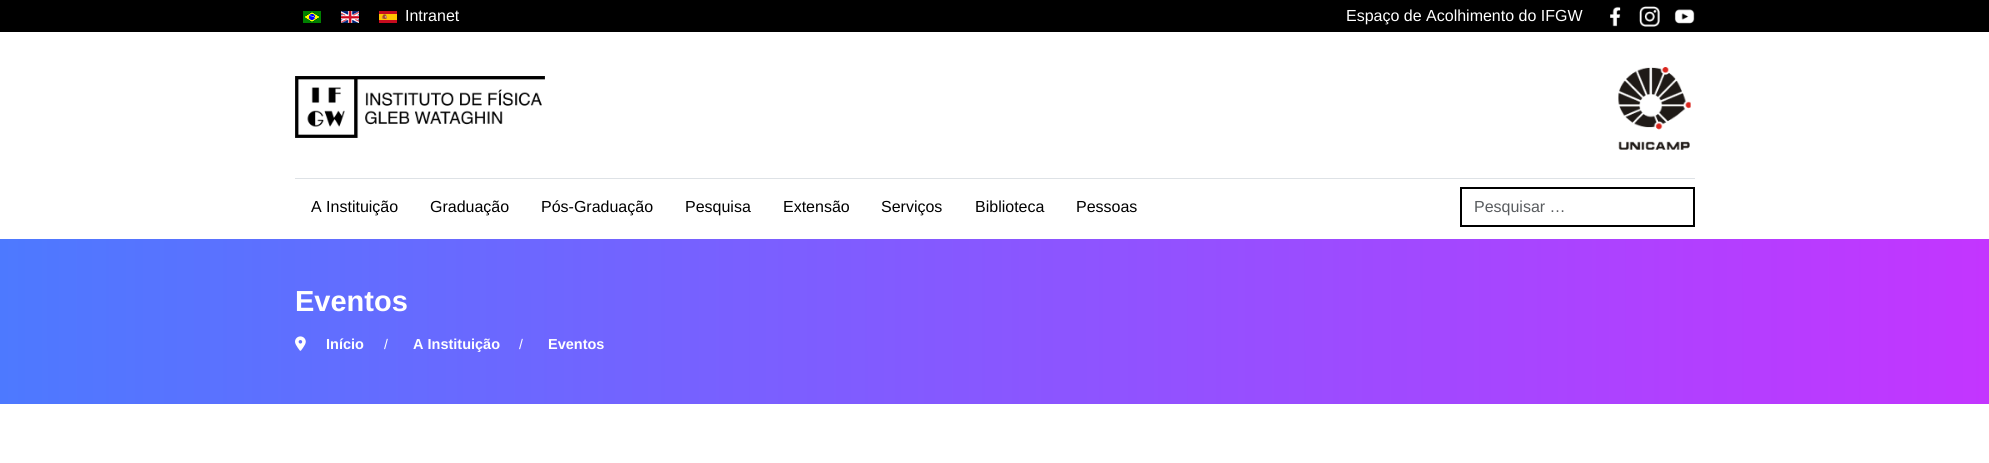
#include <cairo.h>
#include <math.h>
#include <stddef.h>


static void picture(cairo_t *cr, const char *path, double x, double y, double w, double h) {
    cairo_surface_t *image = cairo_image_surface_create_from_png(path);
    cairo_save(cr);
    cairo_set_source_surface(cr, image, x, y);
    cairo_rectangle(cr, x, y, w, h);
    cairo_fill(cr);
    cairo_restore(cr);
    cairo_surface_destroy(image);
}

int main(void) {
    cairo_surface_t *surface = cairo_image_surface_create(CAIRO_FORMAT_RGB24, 1989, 463);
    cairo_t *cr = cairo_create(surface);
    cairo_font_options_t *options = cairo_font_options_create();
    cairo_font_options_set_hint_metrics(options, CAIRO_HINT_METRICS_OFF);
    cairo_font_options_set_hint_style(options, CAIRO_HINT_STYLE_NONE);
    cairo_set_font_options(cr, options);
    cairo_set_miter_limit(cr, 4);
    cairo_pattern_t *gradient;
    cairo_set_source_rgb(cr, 1, 1, 1);
    cairo_paint(cr);
    cairo_set_source_rgb(cr, 0, 0, 0);
    cairo_rectangle(cr, 0, 0, 1989, 32);
    cairo_fill(cr);
    picture(cr, "img1.png", 303, 11, 18, 12);
    picture(cr, "img2.png", 341, 11, 18, 12);
    picture(cr, "img3.png", 379, 11, 18, 12);
    cairo_select_font_face(cr, "Liberation Sans", CAIRO_FONT_SLANT_NORMAL, CAIRO_FONT_WEIGHT_NORMAL);
    cairo_set_font_size(cr, 16);
    cairo_set_source_rgb(cr, 1, 1, 1);
    cairo_move_to(cr, 405, 21);
    cairo_show_text(cr, "Intranet");
    cairo_move_to(cr, 1346, 21);
    cairo_show_text(cr, "Espaço de Acolhimento do IFGW");
    picture(cr, "img4.png", 1610, 6, 11, 21);
    picture(cr, "img5.png", 1639, 6, 21, 21);
    picture(cr, "img6.png", 1674, 9, 21, 15);
    picture(cr, "img7.png", 295, 76, 250, 62);
    picture(cr, "img8.png", 1618, 67, 73, 83);
    cairo_set_source_rgb(cr, 0.871, 0.886, 0.902);
    cairo_rectangle(cr, 295, 178, 1400, 1);
    cairo_fill(cr);
    cairo_set_source_rgb(cr, 0, 0, 0);
    cairo_move_to(cr, 311, 212);
    cairo_show_text(cr, "A Instituição");
    cairo_move_to(cr, 430, 212);
    cairo_show_text(cr, "Graduação");
    cairo_move_to(cr, 541, 212);
    cairo_show_text(cr, "Pós-Graduação");
    cairo_move_to(cr, 685, 212);
    cairo_show_text(cr, "Pesquisa");
    cairo_move_to(cr, 783, 212);
    cairo_show_text(cr, "Extensão");
    cairo_move_to(cr, 881, 212);
    cairo_show_text(cr, "Serviços");
    cairo_move_to(cr, 975, 212);
    cairo_show_text(cr, "Biblioteca");
    cairo_move_to(cr, 1076, 212);
    cairo_show_text(cr, "Pessoas");
    cairo_rectangle(cr, 1461, 188, 233, 38);
    cairo_stroke(cr);
    cairo_set_source_rgb(cr, 0.349, 0.361, 0.373);
    cairo_move_to(cr, 1474, 212);
    cairo_show_text(cr, "Pesquisar …");
    gradient = cairo_pattern_create_linear(0, 322, 1989, 321);
    cairo_pattern_add_color_stop_rgba(gradient, 0, 0.302, 0.475, 1, 1);
    cairo_pattern_add_color_stop_rgba(gradient, 1, 0.765, 0.208, 1, 1);
    cairo_set_source(cr, gradient);
    cairo_pattern_destroy(gradient);
    cairo_rectangle(cr, 0, 239, 1989, 165);
    cairo_fill(cr);
    cairo_select_font_face(cr, "Liberation Sans", CAIRO_FONT_SLANT_NORMAL, CAIRO_FONT_WEIGHT_BOLD);
    cairo_set_font_size(cr, 29);
    cairo_set_source_rgb(cr, 1, 1, 1);
    cairo_move_to(cr, 295, 311);
    cairo_show_text(cr, "Eventos");
    picture(cr, "img9.png", 295, 336, 11, 15);
    cairo_set_font_size(cr, 14.5);
    cairo_move_to(cr, 326, 349);
    cairo_show_text(cr, "Início");
    cairo_select_font_face(cr, "Liberation Sans", CAIRO_FONT_SLANT_NORMAL, CAIRO_FONT_WEIGHT_NORMAL);
    cairo_set_font_size(cr, 14);
    cairo_move_to(cr, 384, 349);
    cairo_show_text(cr, "/");
    cairo_select_font_face(cr, "Liberation Sans", CAIRO_FONT_SLANT_NORMAL, CAIRO_FONT_WEIGHT_BOLD);
    cairo_set_font_size(cr, 14.5);
    cairo_move_to(cr, 413, 349);
    cairo_show_text(cr, "A Instituição");
    cairo_select_font_face(cr, "Liberation Sans", CAIRO_FONT_SLANT_NORMAL, CAIRO_FONT_WEIGHT_NORMAL);
    cairo_set_font_size(cr, 14);
    cairo_move_to(cr, 519, 349);
    cairo_show_text(cr, "/");
    cairo_select_font_face(cr, "Liberation Sans", CAIRO_FONT_SLANT_NORMAL, CAIRO_FONT_WEIGHT_BOLD);
    cairo_set_font_size(cr, 14.5);
    cairo_move_to(cr, 548, 349);
    cairo_show_text(cr, "Eventos");
    cairo_surface_write_to_png(surface, "page.png");
    cairo_font_options_destroy(options);
    cairo_destroy(cr);
    cairo_surface_destroy(surface);
    return 0;
}
